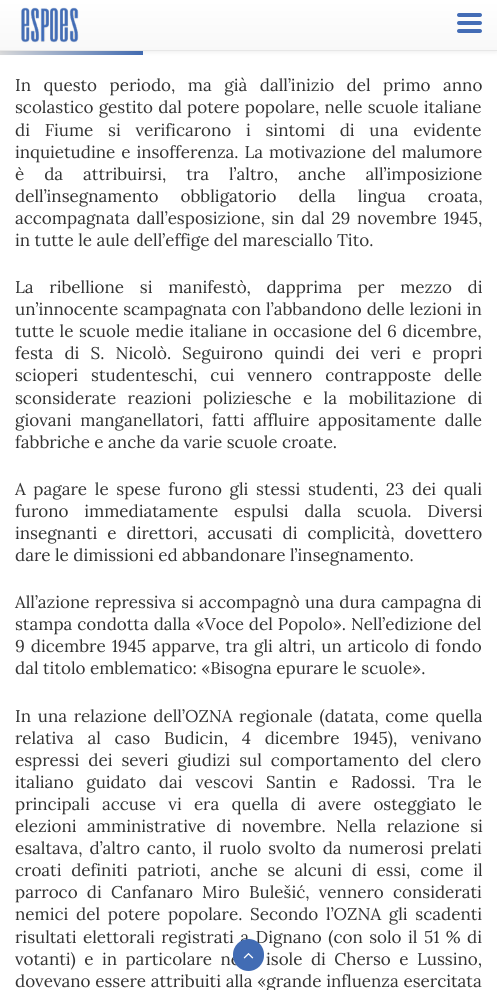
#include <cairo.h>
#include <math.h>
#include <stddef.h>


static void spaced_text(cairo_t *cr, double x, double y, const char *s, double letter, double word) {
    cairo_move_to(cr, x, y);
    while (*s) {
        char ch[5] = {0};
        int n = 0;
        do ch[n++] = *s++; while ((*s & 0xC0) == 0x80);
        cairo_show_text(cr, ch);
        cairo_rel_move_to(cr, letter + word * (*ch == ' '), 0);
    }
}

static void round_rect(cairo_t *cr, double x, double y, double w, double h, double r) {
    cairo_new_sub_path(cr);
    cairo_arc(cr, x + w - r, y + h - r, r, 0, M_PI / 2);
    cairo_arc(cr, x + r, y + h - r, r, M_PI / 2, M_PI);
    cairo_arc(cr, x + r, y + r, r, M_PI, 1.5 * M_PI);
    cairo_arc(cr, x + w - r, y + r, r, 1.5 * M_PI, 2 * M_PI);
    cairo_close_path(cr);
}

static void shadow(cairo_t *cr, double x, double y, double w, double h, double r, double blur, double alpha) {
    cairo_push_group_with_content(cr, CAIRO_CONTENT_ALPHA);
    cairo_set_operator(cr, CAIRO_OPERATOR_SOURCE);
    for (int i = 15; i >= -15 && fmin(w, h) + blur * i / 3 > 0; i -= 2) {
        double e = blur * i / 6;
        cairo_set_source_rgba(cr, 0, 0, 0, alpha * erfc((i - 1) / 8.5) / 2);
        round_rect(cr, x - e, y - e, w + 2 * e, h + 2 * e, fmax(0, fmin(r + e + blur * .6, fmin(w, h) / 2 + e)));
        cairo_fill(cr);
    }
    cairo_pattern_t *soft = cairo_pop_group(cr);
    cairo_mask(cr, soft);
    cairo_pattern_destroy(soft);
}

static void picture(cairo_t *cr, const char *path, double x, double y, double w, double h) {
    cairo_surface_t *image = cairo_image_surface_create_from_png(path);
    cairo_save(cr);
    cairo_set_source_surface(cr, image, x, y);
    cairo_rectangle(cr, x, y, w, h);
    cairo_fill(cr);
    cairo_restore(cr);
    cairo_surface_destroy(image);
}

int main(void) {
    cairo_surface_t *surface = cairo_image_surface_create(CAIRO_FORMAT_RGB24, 497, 990);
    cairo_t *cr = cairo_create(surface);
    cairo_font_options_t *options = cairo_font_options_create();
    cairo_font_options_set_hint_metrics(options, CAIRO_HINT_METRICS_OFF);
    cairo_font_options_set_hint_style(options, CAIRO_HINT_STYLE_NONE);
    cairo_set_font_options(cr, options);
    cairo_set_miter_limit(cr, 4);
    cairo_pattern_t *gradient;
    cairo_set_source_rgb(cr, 1, 1, 1);
    cairo_paint(cr);
    gradient = cairo_pattern_create_linear(17, 21, 126, 84);
    cairo_pattern_add_color_stop_rgba(gradient, 0, 0.871, 0.871, 0.871, 1);
    cairo_pattern_add_color_stop_rgba(gradient, 1, 0.259, 0.424, 0.706, 1);
    cairo_set_source(cr, gradient);
    cairo_pattern_destroy(gradient);
    cairo_rectangle(cr, 0, 51, 143, 4);
    cairo_fill(cr);
    cairo_set_source_rgb(cr, 0, 0, 0);
    shadow(cr, 0, 1, 497, 51, 0, 2.5, 0.07);
    gradient = cairo_pattern_create_linear(249, 0, 249, 50);
    cairo_pattern_add_color_stop_rgba(gradient, 0, 1, 1, 1, 1);
    cairo_pattern_add_color_stop_rgba(gradient, 1, 0.973, 0.973, 0.973, 1);
    cairo_set_source(cr, gradient);
    cairo_pattern_destroy(gradient);
    cairo_rectangle(cr, 0, 0, 497, 50);
    cairo_fill(cr);
    cairo_set_source_rgb(cr, 0.906, 0.906, 0.906);
    cairo_rectangle(cr, 0, 50, 497, 1);
    cairo_fill(cr);
    picture(cr, "img1.png", 21, 7, 58, 36);
    cairo_set_source_rgb(cr, 0.267, 0.427, 0.714);
    round_rect(cr, 457, 13, 25, 4, 2);
    cairo_fill(cr);
    round_rect(cr, 457, 21, 25, 4, 2);
    cairo_fill(cr);
    round_rect(cr, 457, 29, 25, 4, 2);
    cairo_fill(cr);
    cairo_select_font_face(cr, "Lora", CAIRO_FONT_SLANT_NORMAL, CAIRO_FONT_WEIGHT_NORMAL);
    cairo_set_font_size(cr, 17);
    cairo_set_source_rgb(cr, 0.2, 0.2, 0.2);
    spaced_text(cr, 15, 91, "In questo periodo, ma già dall’inizio del primo anno", 0, 8);
    spaced_text(cr, 15, 113, "scolastico gestito dal potere popolare, nelle scuole italiane", 0, 0.75);
    spaced_text(cr, 15, 136, "di Fiume si verificarono i sintomi di una evidente", 0, 10.25);
    spaced_text(cr, 15, 158, "inquietudine e insofferenza. La motivazione del malumore", 0, 1.5);
    spaced_text(cr, 15, 180, "è da attribuirsi, tra l’altro, anche all’imposizione", 0, 15.5);
    spaced_text(cr, 15, 202, "dell’insegnamento obbligatorio della lingua croata,", 0, 17.5);
    spaced_text(cr, 15, 224, "accompagnata dall’esposizione, sin dal 29 novembre 1945,", 0, 2.25);
    cairo_move_to(cr, 15, 246);
    cairo_show_text(cr, "in tutte le aule dell’effige del maresciallo Tito.");
    spaced_text(cr, 15, 293, "La ribellione si manifestò, dapprima per mezzo di", 0, 11.25);
    spaced_text(cr, 15, 315, "un’innocente scampagnata con l’abbandono delle lezioni in", 0, 0.5);
    spaced_text(cr, 15, 337, "tutte le scuole medie italiane in occasione del 6 dicembre,", 0, 1);
    spaced_text(cr, 15, 359, "festa di S. Nicolò. Seguirono quindi dei veri e propri", 0, 6.75);
    spaced_text(cr, 15, 381, "scioperi studenteschi, cui vennero contrapposte delle", 0, 8.5);
    spaced_text(cr, 15, 404, "sconsiderate reazioni poliziesche e la mobilitazione di", 0, 7);
    spaced_text(cr, 15, 426, "giovani manganellatori, fatti affluire appositamente dalle", 0, 4.25);
    cairo_move_to(cr, 15, 448);
    cairo_show_text(cr, "fabbriche e anche da varie scuole croate.");
    spaced_text(cr, 15, 495, "A pagare le spese furono gli stessi studenti, 23 dei quali", 0, 3.25);
    spaced_text(cr, 15, 517, "furono immediatamente espulsi dalla scuola. Diversi", 0, 11.25);
    spaced_text(cr, 15, 539, "insegnanti e direttori, accusati di complicità, dovettero", 0, 5.5);
    cairo_move_to(cr, 15, 561);
    cairo_show_text(cr, "dare le dimissioni ed abbandonare l’insegnamento.");
    spaced_text(cr, 15, 608, "All’azione repressiva si accompagnò una dura campagna di", 0, 0.75);
    spaced_text(cr, 15, 630, "stampa condotta dalla «Voce del Popolo». Nell’edizione del", 0, 0.5);
    spaced_text(cr, 15, 652, "9 dicembre 1945 apparve, tra gli altri, un articolo di fondo", 0, 1.5);
    cairo_move_to(cr, 15, 674);
    cairo_show_text(cr, "dal titolo emblematico: «Bisogna epurare le scuole».");
    spaced_text(cr, 15, 722, "In una relazione dell’OZNA regionale (datata, come quella", 0, 2.25);
    spaced_text(cr, 15, 744, "relativa al caso Budicin, 4 dicembre 1945), venivano", 0, 9.25);
    spaced_text(cr, 15, 766, "espressi dei severi giudizi sul comportamento del clero", 0, 4.5);
    spaced_text(cr, 15, 788, "italiano guidato dai vescovi Santin e Radossi. Tra le", 0, 8.25);
    spaced_text(cr, 15, 810, "principali accuse vi era quella di avere osteggiato le", 0, 7.75);
    spaced_text(cr, 15, 832, "elezioni amministrative di novembre. Nella relazione si", 0, 6);
    spaced_text(cr, 15, 854, "esaltava, d’altro canto, il ruolo svolto da numerosi prelati", 0, 2.5);
    spaced_text(cr, 15, 876, "croati definiti patrioti, anche se alcuni di essi, come il", 0, 5.25);
    spaced_text(cr, 15, 898, "parroco di Canfanaro Miro Bulešić, vennero considerati", 0, 4.75);
    spaced_text(cr, 15, 920, "nemici del potere popolare. Secondo l’OZNA gli scadenti", 0, 3.25);
    spaced_text(cr, 15, 943, "risultati elettorali registrati a Dignano (con solo il 51 % di", 0, 2);
    spaced_text(cr, 15, 965, "votanti) e in particolare ne", 0, 4);
    spaced_text(cr, 266, 965, "isole di Cherso e Lussino,", 0, 4);
    spaced_text(cr, 15, 987, "dovevano essere attribuiti alla «grande influenza esercitata", 0, 0.25);
    cairo_set_source_rgb(cr, 0.259, 0.424, 0.706);
    round_rect(cr, 233, 939, 31, 32, 15.5);
    cairo_fill(cr);
    picture(cr, "img2.png", 243, 953, 11, 6);
    cairo_surface_write_to_png(surface, "page.png");
    cairo_font_options_destroy(options);
    cairo_destroy(cr);
    cairo_surface_destroy(surface);
    return 0;
}
